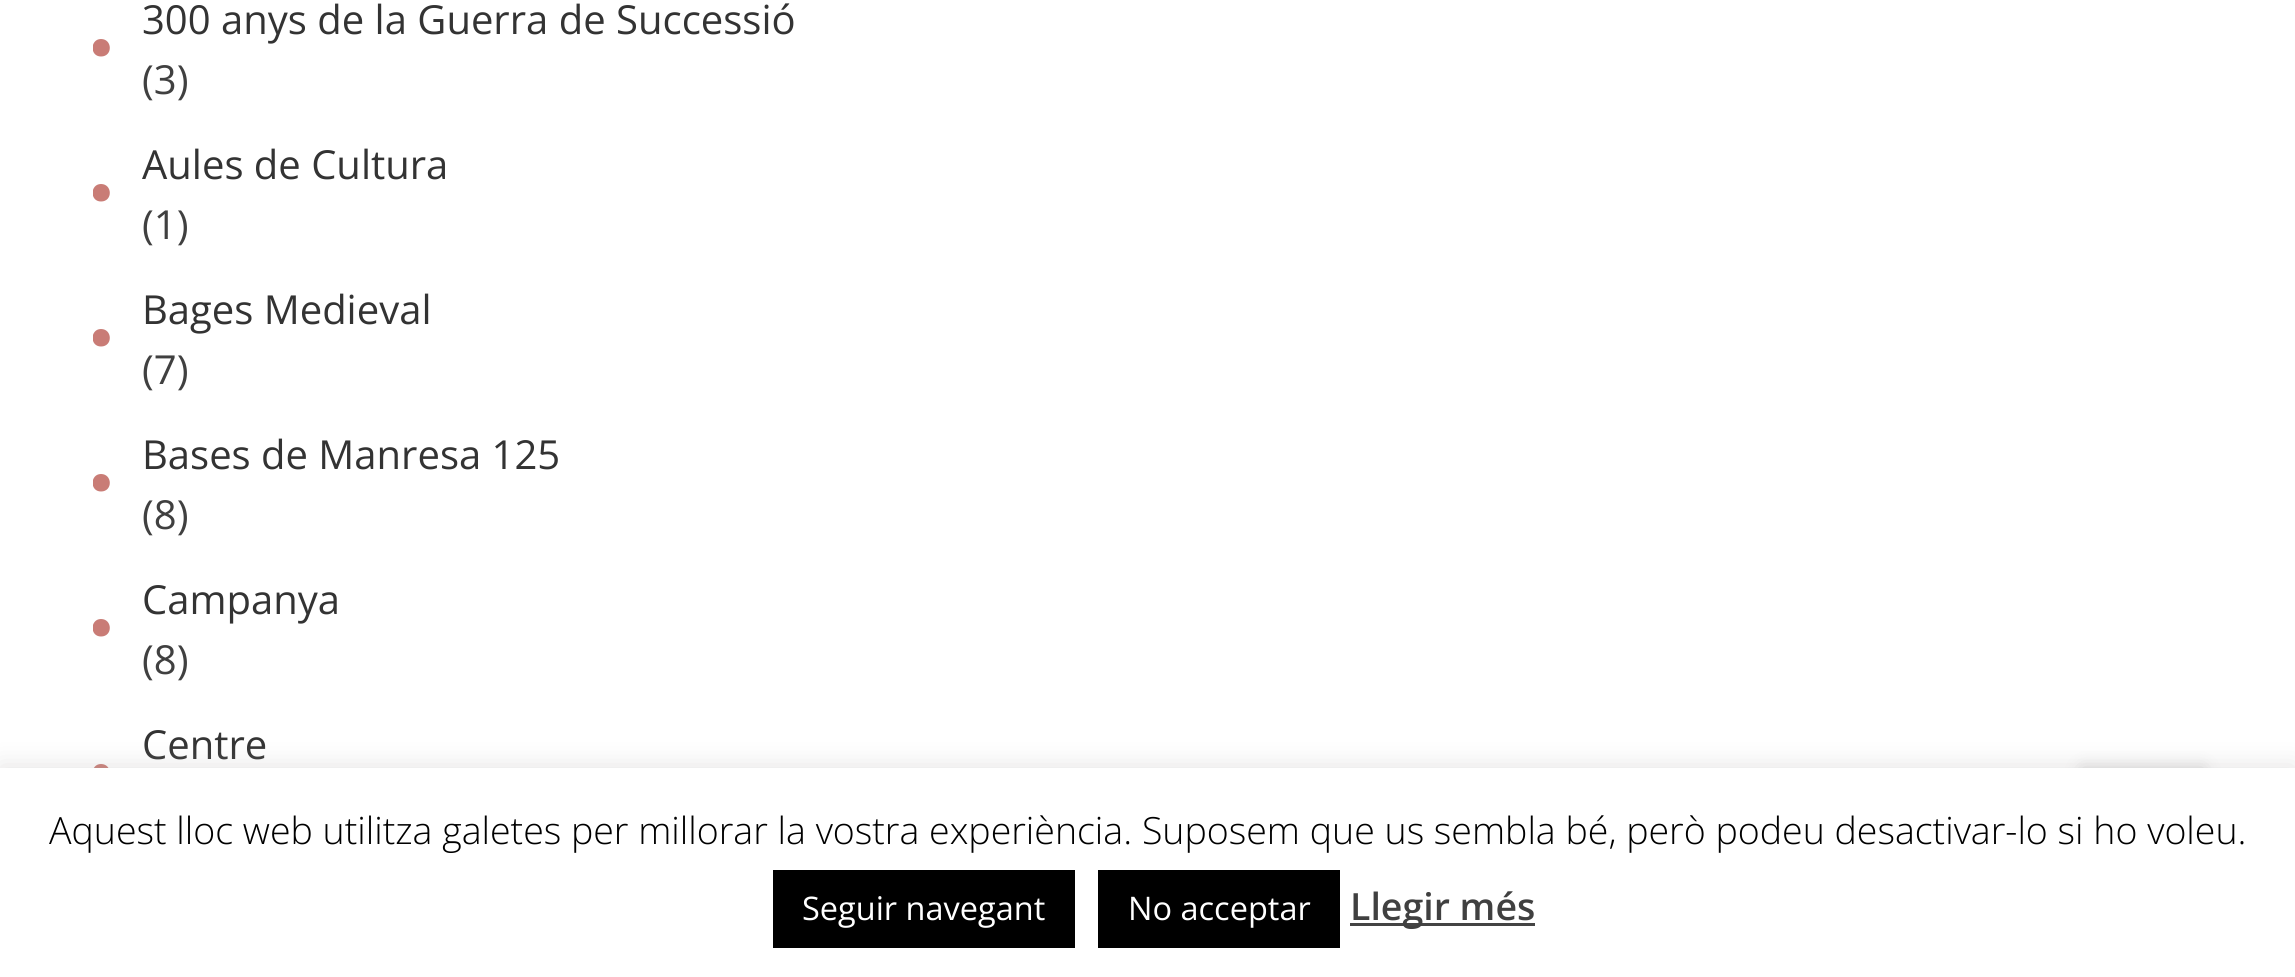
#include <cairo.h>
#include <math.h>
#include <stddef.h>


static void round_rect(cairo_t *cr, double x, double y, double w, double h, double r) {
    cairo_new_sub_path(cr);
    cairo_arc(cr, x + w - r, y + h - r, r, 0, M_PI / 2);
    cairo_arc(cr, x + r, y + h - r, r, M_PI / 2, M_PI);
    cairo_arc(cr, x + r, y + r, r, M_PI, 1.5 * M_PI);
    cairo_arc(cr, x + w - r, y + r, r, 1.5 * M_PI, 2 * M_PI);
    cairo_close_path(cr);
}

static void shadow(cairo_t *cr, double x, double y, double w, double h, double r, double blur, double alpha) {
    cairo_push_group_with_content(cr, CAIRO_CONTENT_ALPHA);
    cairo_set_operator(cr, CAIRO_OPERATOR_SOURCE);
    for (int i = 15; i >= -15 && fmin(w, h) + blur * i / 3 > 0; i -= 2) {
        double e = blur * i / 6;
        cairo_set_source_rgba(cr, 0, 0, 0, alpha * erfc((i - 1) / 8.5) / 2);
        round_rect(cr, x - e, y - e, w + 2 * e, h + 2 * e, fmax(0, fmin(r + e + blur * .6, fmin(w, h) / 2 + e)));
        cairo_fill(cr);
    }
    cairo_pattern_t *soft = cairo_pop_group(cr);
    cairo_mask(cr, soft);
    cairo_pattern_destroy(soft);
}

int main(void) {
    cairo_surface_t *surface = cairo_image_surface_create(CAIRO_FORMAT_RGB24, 2295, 977);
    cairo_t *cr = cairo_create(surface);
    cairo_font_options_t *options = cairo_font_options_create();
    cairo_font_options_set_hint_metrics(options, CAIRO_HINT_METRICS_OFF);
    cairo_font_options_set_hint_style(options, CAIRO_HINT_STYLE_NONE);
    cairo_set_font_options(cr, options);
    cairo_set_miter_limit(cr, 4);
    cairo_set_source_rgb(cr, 1, 1, 1);
    cairo_paint(cr);
    cairo_select_font_face(cr, "Open Sans", CAIRO_FONT_SLANT_NORMAL, CAIRO_FONT_WEIGHT_NORMAL);
    cairo_set_font_size(cr, 40);
    cairo_set_source_rgb(cr, 0.2, 0.2, 0.2);
    cairo_move_to(cr, 142, 34);
    cairo_show_text(cr, "300 anys de la Guerra de Successió");
    cairo_save(cr);
    cairo_rectangle(cr, 93, 0, 2110, 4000);
    cairo_clip(cr);
    cairo_set_source_rgb(cr, 0.788, 0.486, 0.463);
    cairo_new_path(cr);
    cairo_move_to(cr, 101, 56.5);
    cairo_curve_to(cr, 113, 56.5, 112.5, 39, 101, 39);
    cairo_curve_to(cr, 90, 39, 89.5, 56.5, 101, 56.5);
    cairo_close_path(cr);
    cairo_fill(cr);
    cairo_restore(cr);
    cairo_set_source_rgb(cr, 0.251, 0.251, 0.251);
    cairo_move_to(cr, 142, 94);
    cairo_show_text(cr, "(3)");
    cairo_set_source_rgb(cr, 0.2, 0.2, 0.2);
    cairo_move_to(cr, 142, 179);
    cairo_show_text(cr, "Aules de Cultura");
    cairo_save(cr);
    cairo_rectangle(cr, 93, 0, 2110, 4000);
    cairo_clip(cr);
    cairo_set_source_rgb(cr, 0.788, 0.486, 0.463);
    cairo_new_path(cr);
    cairo_move_to(cr, 101, 201.5);
    cairo_curve_to(cr, 113, 201.5, 112.5, 184, 101, 184);
    cairo_curve_to(cr, 90, 184, 89.5, 201.5, 101, 201.5);
    cairo_close_path(cr);
    cairo_fill(cr);
    cairo_restore(cr);
    cairo_set_source_rgb(cr, 0.251, 0.251, 0.251);
    cairo_move_to(cr, 142, 239);
    cairo_show_text(cr, "(1)");
    cairo_set_source_rgb(cr, 0.2, 0.2, 0.2);
    cairo_move_to(cr, 142, 324);
    cairo_show_text(cr, "Bages Medieval");
    cairo_save(cr);
    cairo_rectangle(cr, 93, 0, 2110, 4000);
    cairo_clip(cr);
    cairo_set_source_rgb(cr, 0.788, 0.486, 0.463);
    cairo_new_path(cr);
    cairo_move_to(cr, 101, 346.5);
    cairo_curve_to(cr, 113, 346.5, 112.5, 329, 101, 329);
    cairo_curve_to(cr, 90, 329, 89.5, 346.5, 101, 346.5);
    cairo_close_path(cr);
    cairo_fill(cr);
    cairo_restore(cr);
    cairo_set_source_rgb(cr, 0.251, 0.251, 0.251);
    cairo_move_to(cr, 142, 384);
    cairo_show_text(cr, "(7)");
    cairo_set_source_rgb(cr, 0.2, 0.2, 0.2);
    cairo_move_to(cr, 142, 469);
    cairo_show_text(cr, "Bases de Manresa 125");
    cairo_save(cr);
    cairo_rectangle(cr, 93, 0, 2110, 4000);
    cairo_clip(cr);
    cairo_set_source_rgb(cr, 0.788, 0.486, 0.463);
    cairo_new_path(cr);
    cairo_move_to(cr, 101, 491.5);
    cairo_curve_to(cr, 113, 491.5, 112.5, 474, 101, 474);
    cairo_curve_to(cr, 90, 474, 89.5, 491.5, 101, 491.5);
    cairo_close_path(cr);
    cairo_fill(cr);
    cairo_restore(cr);
    cairo_set_source_rgb(cr, 0.251, 0.251, 0.251);
    cairo_move_to(cr, 142, 529);
    cairo_show_text(cr, "(8)");
    cairo_set_source_rgb(cr, 0.2, 0.2, 0.2);
    cairo_move_to(cr, 142, 614);
    cairo_show_text(cr, "Campanya");
    cairo_save(cr);
    cairo_rectangle(cr, 93, 0, 2110, 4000);
    cairo_clip(cr);
    cairo_set_source_rgb(cr, 0.788, 0.486, 0.463);
    cairo_new_path(cr);
    cairo_move_to(cr, 101, 636.5);
    cairo_curve_to(cr, 113, 636.5, 112.5, 619, 101, 619);
    cairo_curve_to(cr, 90, 619, 89.5, 636.5, 101, 636.5);
    cairo_close_path(cr);
    cairo_fill(cr);
    cairo_restore(cr);
    cairo_set_source_rgb(cr, 0.251, 0.251, 0.251);
    cairo_move_to(cr, 142, 674);
    cairo_show_text(cr, "(8)");
    cairo_set_source_rgb(cr, 0.2, 0.2, 0.2);
    cairo_move_to(cr, 142, 759);
    cairo_show_text(cr, "Centre");
    cairo_set_source_rgb(cr, 0.788, 0.486, 0.463);
    cairo_new_path(cr);
    cairo_move_to(cr, 101, 781.5);
    cairo_curve_to(cr, 113, 781.5, 112.5, 764, 101, 764);
    cairo_curve_to(cr, 90, 764, 89.5, 781.5, 101, 781.5);
    cairo_close_path(cr);
    cairo_fill(cr);
    cairo_set_source_rgb(cr, 0, 0, 0);
    shadow(cr, 2083, 770, 120, 123, 0, 9, 0.2);
    cairo_set_source_rgb(cr, 0.675, 0.671, 0.671);
    shadow(cr, 0, 765, 2295, 210, 0, 12.5, 0.3);
    cairo_set_source_rgb(cr, 1, 1, 1);
    cairo_rectangle(cr, 0, 768, 2295, 209);
    cairo_fill(cr);
    cairo_select_font_face(cr, "Open Sans Light", CAIRO_FONT_SLANT_NORMAL, CAIRO_FONT_WEIGHT_NORMAL);
    cairo_set_font_size(cr, 37.5);
    cairo_set_source_rgb(cr, 0, 0, 0);
    cairo_move_to(cr, 49, 844);
    cairo_show_text(cr, "Aquest lloc web utilitza galetes per millorar la vostra experiència. Suposem que us sembla bé, però podeu desactivar-lo si ho voleu.");
    cairo_rectangle(cr, 773, 870, 302, 78);
    cairo_fill(cr);
    cairo_select_font_face(cr, "Open Sans", CAIRO_FONT_SLANT_NORMAL, CAIRO_FONT_WEIGHT_NORMAL);
    cairo_set_font_size(cr, 32.5);
    cairo_set_source_rgb(cr, 1, 1, 1);
    cairo_move_to(cr, 802, 920);
    cairo_show_text(cr, "Seguir navegant");
    cairo_set_source_rgb(cr, 0, 0, 0);
    cairo_rectangle(cr, 1098, 870, 242, 78);
    cairo_fill(cr);
    cairo_set_source_rgb(cr, 1, 1, 1);
    cairo_move_to(cr, 1128, 920);
    cairo_show_text(cr, "No acceptar");
    cairo_set_source_rgb(cr, 0.267, 0.267, 0.267);
    cairo_rectangle(cr, 1350, 923, 185, 3);
    cairo_fill(cr);
    cairo_select_font_face(cr, "Open Sans SemiBold", CAIRO_FONT_SLANT_NORMAL, CAIRO_FONT_WEIGHT_NORMAL);
    cairo_set_font_size(cr, 37.5);
    cairo_set_source_rgb(cr, 0.251, 0.251, 0.251);
    cairo_move_to(cr, 1350, 920);
    cairo_show_text(cr, "Llegir més");
    cairo_surface_write_to_png(surface, "page.png");
    cairo_font_options_destroy(options);
    cairo_destroy(cr);
    cairo_surface_destroy(surface);
    return 0;
}
